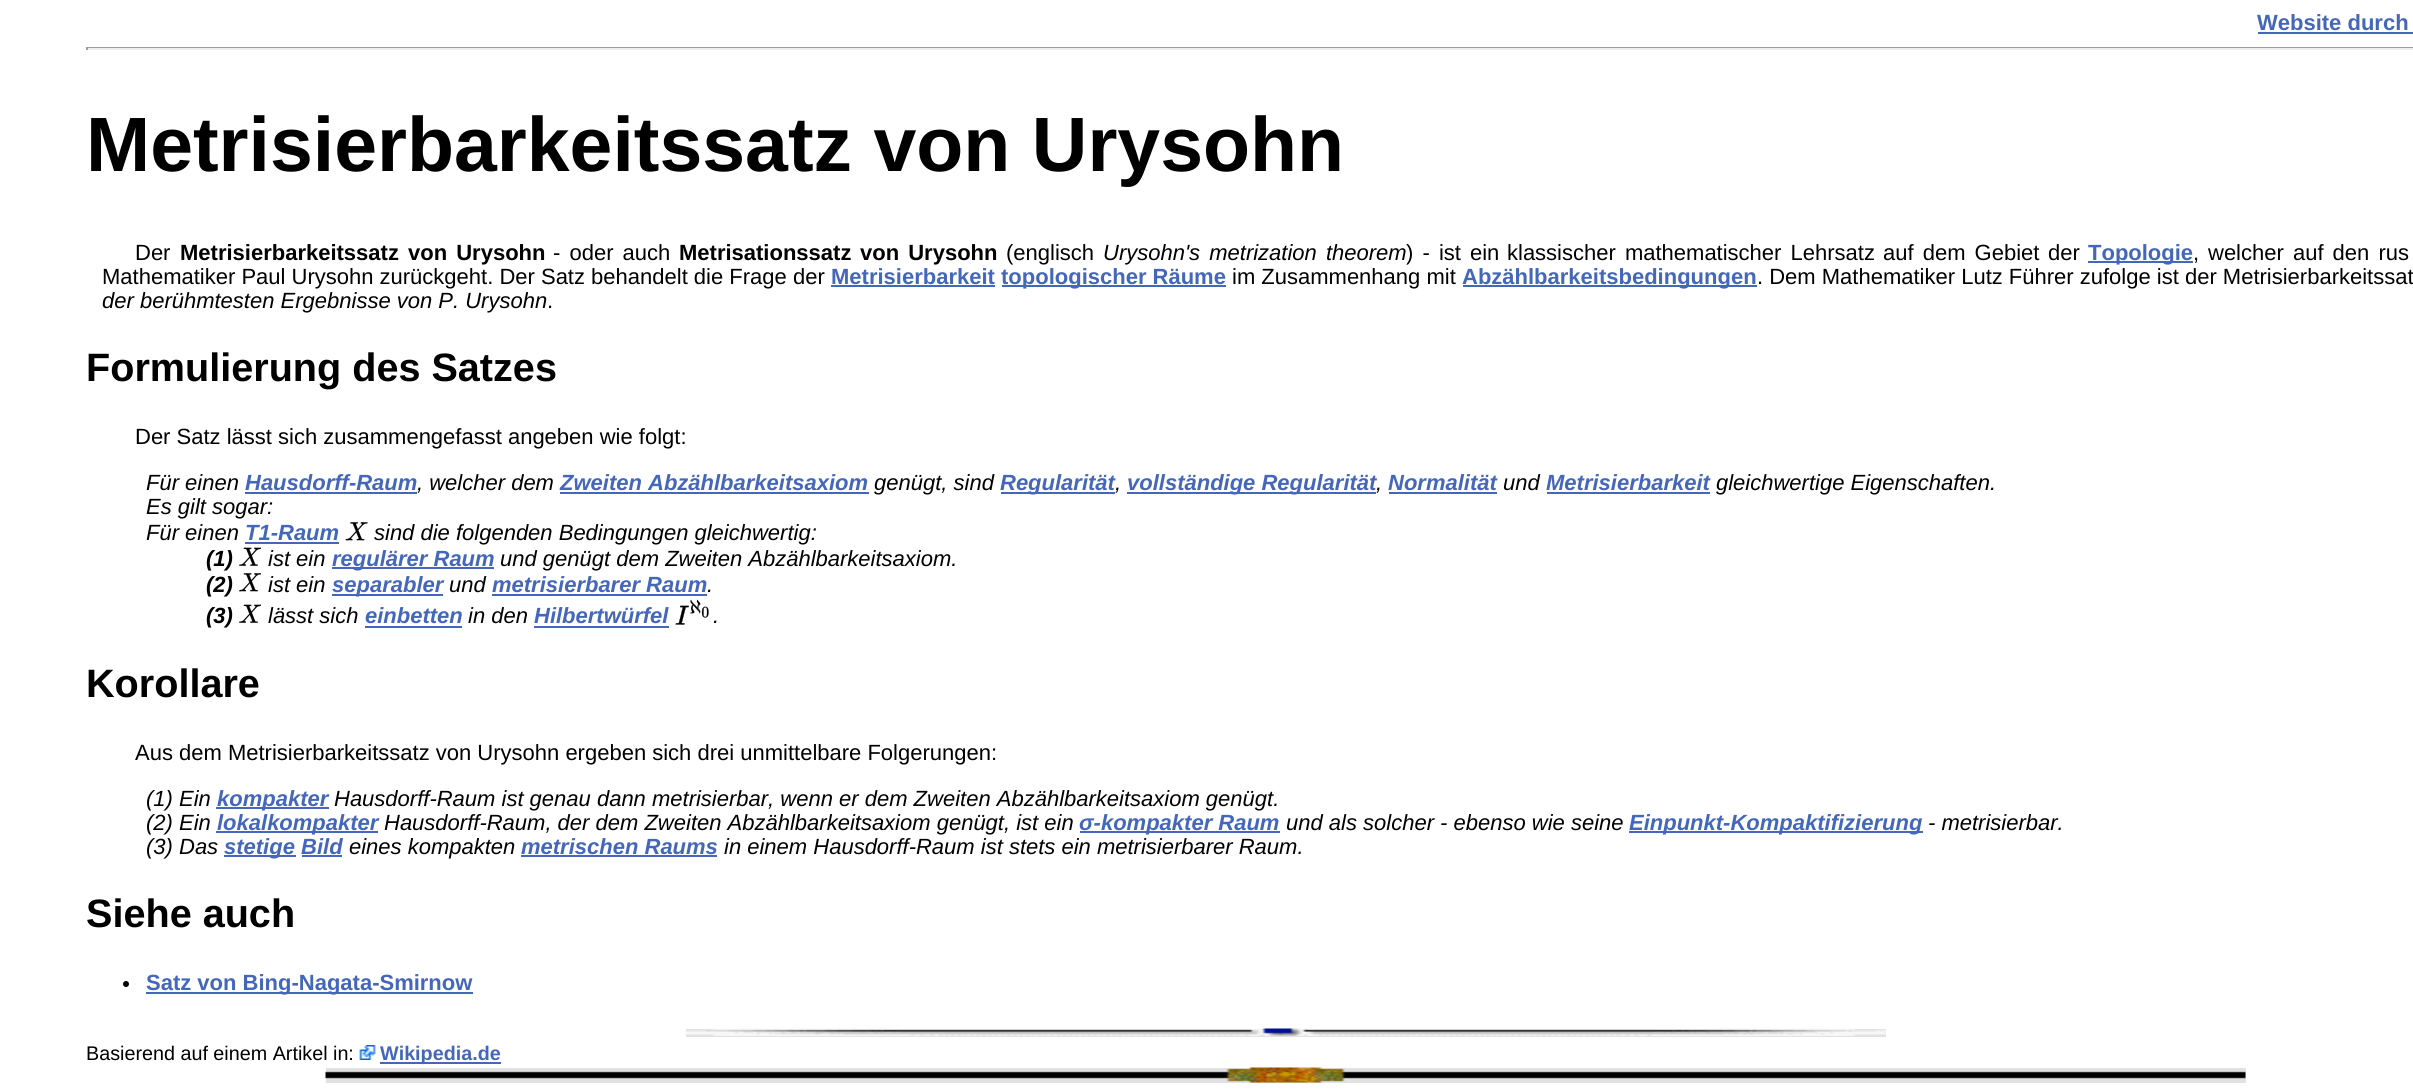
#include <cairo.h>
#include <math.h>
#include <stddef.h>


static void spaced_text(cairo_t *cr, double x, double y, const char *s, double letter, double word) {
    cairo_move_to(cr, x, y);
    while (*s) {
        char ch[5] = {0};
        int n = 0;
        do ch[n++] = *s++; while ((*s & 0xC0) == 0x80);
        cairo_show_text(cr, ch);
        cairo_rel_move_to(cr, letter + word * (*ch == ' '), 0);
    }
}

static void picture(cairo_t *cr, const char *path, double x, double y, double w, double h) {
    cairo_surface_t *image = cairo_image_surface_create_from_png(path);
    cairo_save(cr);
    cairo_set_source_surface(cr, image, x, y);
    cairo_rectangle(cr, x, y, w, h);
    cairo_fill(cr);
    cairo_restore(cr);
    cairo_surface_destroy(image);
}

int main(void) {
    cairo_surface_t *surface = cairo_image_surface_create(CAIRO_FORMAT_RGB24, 2413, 1090);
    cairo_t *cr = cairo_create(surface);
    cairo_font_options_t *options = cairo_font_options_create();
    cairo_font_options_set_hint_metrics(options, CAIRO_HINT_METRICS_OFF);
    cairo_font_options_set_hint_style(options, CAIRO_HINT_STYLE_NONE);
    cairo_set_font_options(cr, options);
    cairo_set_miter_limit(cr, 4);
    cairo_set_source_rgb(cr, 1, 1, 1);
    cairo_paint(cr);
    cairo_select_font_face(cr, "Liberation Sans", CAIRO_FONT_SLANT_NORMAL, CAIRO_FONT_WEIGHT_BOLD);
    cairo_set_font_size(cr, 22);
    cairo_set_source_rgb(cr, 0.267, 0.4, 0.733);
    cairo_move_to(cr, 2257, 30);
    cairo_show_text(cr, "Website durch");
    cairo_rectangle(cr, 2258, 32, 155, 2);
    cairo_fill(cr);
    cairo_set_source_rgb(cr, 0.624, 0.624, 0.624);
    cairo_rectangle(cr, 86, 47, 2327, 1);
    cairo_fill(cr);
    cairo_set_source_rgb(cr, 0.933, 0.933, 0.933);
    cairo_rectangle(cr, 86, 48, 2327, 2);
    cairo_fill(cr);
    cairo_set_source_rgb(cr, 0.624, 0.624, 0.624);
    cairo_rectangle(cr, 86, 47, 2, 3);
    cairo_fill(cr);
    cairo_set_font_size(cr, 77);
    cairo_set_source_rgb(cr, 0, 0, 0);
    cairo_move_to(cr, 86, 171);
    cairo_show_text(cr, "Metrisierbarkeitssatz von Urysohn");
    cairo_select_font_face(cr, "Liberation Sans", CAIRO_FONT_SLANT_NORMAL, CAIRO_FONT_WEIGHT_NORMAL);
    cairo_set_font_size(cr, 22);
    cairo_move_to(cr, 135, 260);
    cairo_show_text(cr, "Der");
    cairo_select_font_face(cr, "Liberation Sans", CAIRO_FONT_SLANT_NORMAL, CAIRO_FONT_WEIGHT_BOLD);
    spaced_text(cr, 180, 260, "Metrisierbarkeitssatz von Urysohn", 0, 3);
    cairo_select_font_face(cr, "Liberation Sans", CAIRO_FONT_SLANT_NORMAL, CAIRO_FONT_WEIGHT_NORMAL);
    spaced_text(cr, 553, 260, "- oder auch", 0, 3);
    cairo_select_font_face(cr, "Liberation Sans", CAIRO_FONT_SLANT_NORMAL, CAIRO_FONT_WEIGHT_BOLD);
    cairo_move_to(cr, 679, 260);
    cairo_show_text(cr, "Metrisationssatz");
    spaced_text(cr, 860, 260, "von Urysohn", 0, 3);
    cairo_select_font_face(cr, "Liberation Sans", CAIRO_FONT_SLANT_NORMAL, CAIRO_FONT_WEIGHT_NORMAL);
    cairo_move_to(cr, 1006, 260);
    cairo_show_text(cr, "(englisch");
    cairo_select_font_face(cr, "Liberation Sans", CAIRO_FONT_SLANT_ITALIC, CAIRO_FONT_WEIGHT_NORMAL);
    spaced_text(cr, 1103, 260, "Urysohn's metrization theorem", 0, 3);
    cairo_select_font_face(cr, "Liberation Sans", CAIRO_FONT_SLANT_NORMAL, CAIRO_FONT_WEIGHT_NORMAL);
    spaced_text(cr, 1406, 260, ") - ist ein", 0, 3);
    spaced_text(cr, 1507, 260, "klassischer mathematischer Lehrsatz", 0, 3);
    spaced_text(cr, 1883, 260, "auf dem Gebiet", 0, 3);
    cairo_move_to(cr, 2048, 260);
    cairo_show_text(cr, "der");
    cairo_set_source_rgb(cr, 0.267, 0.4, 0.733);
    cairo_rectangle(cr, 2088, 261, 105, 2);
    cairo_fill(cr);
    cairo_select_font_face(cr, "Liberation Sans", CAIRO_FONT_SLANT_NORMAL, CAIRO_FONT_WEIGHT_BOLD);
    cairo_move_to(cr, 2088, 260);
    cairo_show_text(cr, "Topologie");
    cairo_select_font_face(cr, "Liberation Sans", CAIRO_FONT_SLANT_NORMAL, CAIRO_FONT_WEIGHT_NORMAL);
    cairo_set_source_rgb(cr, 0, 0, 0);
    cairo_move_to(cr, 2193, 260);
    cairo_show_text(cr, ",");
    spaced_text(cr, 2208, 260, "welcher auf den rus", 0, 3);
    cairo_move_to(cr, 102, 284);
    cairo_show_text(cr, "Mathematiker Paul Urysohn zurückgeht. Der Satz behandelt die Frage der");
    cairo_select_font_face(cr, "Liberation Sans", CAIRO_FONT_SLANT_NORMAL, CAIRO_FONT_WEIGHT_BOLD);
    cairo_set_source_rgb(cr, 0.267, 0.4, 0.733);
    cairo_move_to(cr, 831, 284);
    cairo_show_text(cr, "Metrisierbarkeit");
    cairo_rectangle(cr, 831, 285, 164, 2);
    cairo_fill(cr);
    cairo_rectangle(cr, 1002, 285, 224, 2);
    cairo_fill(cr);
    cairo_move_to(cr, 1001, 284);
    cairo_show_text(cr, "topologischer Räume");
    cairo_select_font_face(cr, "Liberation Sans", CAIRO_FONT_SLANT_NORMAL, CAIRO_FONT_WEIGHT_NORMAL);
    cairo_set_source_rgb(cr, 0, 0, 0);
    cairo_move_to(cr, 1232, 284);
    cairo_show_text(cr, "im Zusammenhang mit");
    cairo_set_source_rgb(cr, 0.267, 0.4, 0.733);
    cairo_rectangle(cr, 1463, 285, 294, 2);
    cairo_fill(cr);
    cairo_select_font_face(cr, "Liberation Sans", CAIRO_FONT_SLANT_NORMAL, CAIRO_FONT_WEIGHT_BOLD);
    cairo_move_to(cr, 1462, 284);
    cairo_show_text(cr, "Abzählbarkeitsbedingungen");
    cairo_select_font_face(cr, "Liberation Sans", CAIRO_FONT_SLANT_NORMAL, CAIRO_FONT_WEIGHT_NORMAL);
    cairo_set_source_rgb(cr, 0, 0, 0);
    cairo_move_to(cr, 1757, 284);
    cairo_show_text(cr, ". Dem Mathematiker Lutz Führer zufolge ist der Metrisierbarkeitssat");
    cairo_select_font_face(cr, "Liberation Sans", CAIRO_FONT_SLANT_ITALIC, CAIRO_FONT_WEIGHT_NORMAL);
    cairo_move_to(cr, 102, 308);
    cairo_show_text(cr, "der berühmtesten Ergebnisse von P. Urysohn");
    cairo_select_font_face(cr, "Liberation Sans", CAIRO_FONT_SLANT_NORMAL, CAIRO_FONT_WEIGHT_NORMAL);
    cairo_move_to(cr, 547, 308);
    cairo_show_text(cr, ".");
    cairo_select_font_face(cr, "Liberation Sans", CAIRO_FONT_SLANT_NORMAL, CAIRO_FONT_WEIGHT_BOLD);
    cairo_set_font_size(cr, 39.6);
    cairo_move_to(cr, 86, 381);
    cairo_show_text(cr, "Formulierung des Satzes");
    cairo_select_font_face(cr, "Liberation Sans", CAIRO_FONT_SLANT_NORMAL, CAIRO_FONT_WEIGHT_NORMAL);
    cairo_set_font_size(cr, 22);
    cairo_move_to(cr, 135, 444);
    cairo_show_text(cr, "Der Satz lässt sich zusammengefasst angeben wie folgt:");
    cairo_select_font_face(cr, "Liberation Sans", CAIRO_FONT_SLANT_ITALIC, CAIRO_FONT_WEIGHT_NORMAL);
    cairo_move_to(cr, 146, 490);
    cairo_show_text(cr, "Für einen");
    cairo_select_font_face(cr, "Liberation Sans", CAIRO_FONT_SLANT_ITALIC, CAIRO_FONT_WEIGHT_BOLD);
    cairo_set_source_rgb(cr, 0.267, 0.4, 0.733);
    cairo_move_to(cr, 245, 490);
    cairo_show_text(cr, "Hausdorff-Raum");
    cairo_select_font_face(cr, "Liberation Sans", CAIRO_FONT_SLANT_ITALIC, CAIRO_FONT_WEIGHT_NORMAL);
    cairo_set_source_rgb(cr, 0, 0, 0);
    cairo_move_to(cr, 417, 490);
    cairo_show_text(cr, ", welcher dem");
    cairo_set_source_rgb(cr, 0.267, 0.4, 0.733);
    cairo_rectangle(cr, 245, 492, 172, 2);
    cairo_fill(cr);
    cairo_select_font_face(cr, "Liberation Sans", CAIRO_FONT_SLANT_ITALIC, CAIRO_FONT_WEIGHT_BOLD);
    cairo_move_to(cr, 560, 490);
    cairo_show_text(cr, "Zweiten Abzählbarkeitsaxiom");
    cairo_rectangle(cr, 560, 492, 309, 2);
    cairo_fill(cr);
    cairo_select_font_face(cr, "Liberation Sans", CAIRO_FONT_SLANT_ITALIC, CAIRO_FONT_WEIGHT_NORMAL);
    cairo_set_source_rgb(cr, 0, 0, 0);
    cairo_move_to(cr, 874, 490);
    cairo_show_text(cr, "genügt, sind");
    cairo_set_source_rgb(cr, 0.267, 0.4, 0.733);
    cairo_rectangle(cr, 1001, 492, 114, 2);
    cairo_fill(cr);
    cairo_select_font_face(cr, "Liberation Sans", CAIRO_FONT_SLANT_ITALIC, CAIRO_FONT_WEIGHT_BOLD);
    cairo_move_to(cr, 1000, 490);
    cairo_show_text(cr, "Regularität");
    cairo_select_font_face(cr, "Liberation Sans", CAIRO_FONT_SLANT_ITALIC, CAIRO_FONT_WEIGHT_NORMAL);
    cairo_set_source_rgb(cr, 0, 0, 0);
    cairo_move_to(cr, 1115, 490);
    cairo_show_text(cr, ",");
    cairo_set_source_rgb(cr, 0.267, 0.4, 0.733);
    cairo_rectangle(cr, 1127, 492, 249, 2);
    cairo_fill(cr);
    cairo_select_font_face(cr, "Liberation Sans", CAIRO_FONT_SLANT_ITALIC, CAIRO_FONT_WEIGHT_BOLD);
    cairo_move_to(cr, 1127, 490);
    cairo_show_text(cr, "vollständige Regularität");
    cairo_select_font_face(cr, "Liberation Sans", CAIRO_FONT_SLANT_ITALIC, CAIRO_FONT_WEIGHT_NORMAL);
    cairo_set_source_rgb(cr, 0, 0, 0);
    cairo_move_to(cr, 1376, 490);
    cairo_show_text(cr, ",");
    cairo_set_source_rgb(cr, 0.267, 0.4, 0.733);
    cairo_rectangle(cr, 1389, 492, 108, 2);
    cairo_fill(cr);
    cairo_select_font_face(cr, "Liberation Sans", CAIRO_FONT_SLANT_ITALIC, CAIRO_FONT_WEIGHT_BOLD);
    cairo_move_to(cr, 1388, 490);
    cairo_show_text(cr, "Normalität");
    cairo_select_font_face(cr, "Liberation Sans", CAIRO_FONT_SLANT_ITALIC, CAIRO_FONT_WEIGHT_NORMAL);
    cairo_set_source_rgb(cr, 0, 0, 0);
    cairo_move_to(cr, 1503, 490);
    cairo_show_text(cr, "und");
    cairo_select_font_face(cr, "Liberation Sans", CAIRO_FONT_SLANT_ITALIC, CAIRO_FONT_WEIGHT_BOLD);
    cairo_set_source_rgb(cr, 0.267, 0.4, 0.733);
    cairo_move_to(cr, 1546, 490);
    cairo_show_text(cr, "Metrisierbarkeit");
    cairo_rectangle(cr, 1547, 492, 163, 2);
    cairo_fill(cr);
    cairo_select_font_face(cr, "Liberation Sans", CAIRO_FONT_SLANT_ITALIC, CAIRO_FONT_WEIGHT_NORMAL);
    cairo_set_source_rgb(cr, 0, 0, 0);
    cairo_move_to(cr, 1716, 490);
    cairo_show_text(cr, "gleichwertige Eigenschaften.");
    cairo_move_to(cr, 146, 514);
    cairo_show_text(cr, "Es gilt sogar:");
    cairo_move_to(cr, 146, 540);
    cairo_show_text(cr, "Für einen");
    cairo_select_font_face(cr, "Liberation Sans", CAIRO_FONT_SLANT_ITALIC, CAIRO_FONT_WEIGHT_BOLD);
    cairo_set_source_rgb(cr, 0.267, 0.4, 0.733);
    cairo_move_to(cr, 245, 540);
    cairo_show_text(cr, "T1-Raum");
    cairo_rectangle(cr, 245, 542, 94, 2);
    cairo_fill(cr);
    picture(cr, "img1.png", 345, 522, 23, 19);
    cairo_select_font_face(cr, "Liberation Sans", CAIRO_FONT_SLANT_ITALIC, CAIRO_FONT_WEIGHT_NORMAL);
    cairo_set_source_rgb(cr, 0, 0, 0);
    cairo_move_to(cr, 374, 540);
    cairo_show_text(cr, "sind die folgenden Bedingungen gleichwertig:");
    cairo_select_font_face(cr, "Liberation Sans", CAIRO_FONT_SLANT_ITALIC, CAIRO_FONT_WEIGHT_BOLD);
    cairo_move_to(cr, 206, 566);
    cairo_show_text(cr, "(1)");
    picture(cr, "img2.png", 239, 547, 22, 19);
    cairo_select_font_face(cr, "Liberation Sans", CAIRO_FONT_SLANT_ITALIC, CAIRO_FONT_WEIGHT_NORMAL);
    cairo_move_to(cr, 268, 566);
    cairo_show_text(cr, "ist ein");
    cairo_set_source_rgb(cr, 0.267, 0.4, 0.733);
    cairo_rectangle(cr, 332, 567, 162, 2);
    cairo_fill(cr);
    cairo_select_font_face(cr, "Liberation Sans", CAIRO_FONT_SLANT_ITALIC, CAIRO_FONT_WEIGHT_BOLD);
    cairo_move_to(cr, 332, 566);
    cairo_show_text(cr, "regulärer Raum");
    cairo_select_font_face(cr, "Liberation Sans", CAIRO_FONT_SLANT_ITALIC, CAIRO_FONT_WEIGHT_NORMAL);
    cairo_set_source_rgb(cr, 0, 0, 0);
    cairo_move_to(cr, 500, 566);
    cairo_show_text(cr, "und genügt dem Zweiten Abzählbarkeitsaxiom.");
    cairo_select_font_face(cr, "Liberation Sans", CAIRO_FONT_SLANT_ITALIC, CAIRO_FONT_WEIGHT_BOLD);
    cairo_move_to(cr, 206, 592);
    cairo_show_text(cr, "(2)");
    picture(cr, "img3.png", 239, 573, 22, 19);
    cairo_select_font_face(cr, "Liberation Sans", CAIRO_FONT_SLANT_ITALIC, CAIRO_FONT_WEIGHT_NORMAL);
    cairo_move_to(cr, 268, 592);
    cairo_show_text(cr, "ist ein");
    cairo_set_source_rgb(cr, 0.267, 0.4, 0.733);
    cairo_rectangle(cr, 332, 594, 111, 2);
    cairo_fill(cr);
    cairo_select_font_face(cr, "Liberation Sans", CAIRO_FONT_SLANT_ITALIC, CAIRO_FONT_WEIGHT_BOLD);
    cairo_move_to(cr, 332, 592);
    cairo_show_text(cr, "separabler");
    cairo_select_font_face(cr, "Liberation Sans", CAIRO_FONT_SLANT_ITALIC, CAIRO_FONT_WEIGHT_NORMAL);
    cairo_set_source_rgb(cr, 0, 0, 0);
    cairo_move_to(cr, 449, 592);
    cairo_show_text(cr, "und");
    cairo_select_font_face(cr, "Liberation Sans", CAIRO_FONT_SLANT_ITALIC, CAIRO_FONT_WEIGHT_BOLD);
    cairo_set_source_rgb(cr, 0.267, 0.4, 0.733);
    cairo_move_to(cr, 492, 592);
    cairo_show_text(cr, "metrisierbarer Raum");
    cairo_select_font_face(cr, "Liberation Sans", CAIRO_FONT_SLANT_ITALIC, CAIRO_FONT_WEIGHT_NORMAL);
    cairo_set_source_rgb(cr, 0, 0, 0);
    cairo_move_to(cr, 707, 592);
    cairo_show_text(cr, ".");
    cairo_set_source_rgb(cr, 0.267, 0.4, 0.733);
    cairo_rectangle(cr, 492, 594, 215, 2);
    cairo_fill(cr);
    cairo_select_font_face(cr, "Liberation Sans", CAIRO_FONT_SLANT_ITALIC, CAIRO_FONT_WEIGHT_BOLD);
    cairo_set_source_rgb(cr, 0, 0, 0);
    cairo_move_to(cr, 206, 623);
    cairo_show_text(cr, "(3)");
    picture(cr, "img2.png", 239, 604, 22, 19);
    cairo_select_font_face(cr, "Liberation Sans", CAIRO_FONT_SLANT_ITALIC, CAIRO_FONT_WEIGHT_NORMAL);
    cairo_move_to(cr, 268, 623);
    cairo_show_text(cr, "lässt sich");
    cairo_select_font_face(cr, "Liberation Sans", CAIRO_FONT_SLANT_ITALIC, CAIRO_FONT_WEIGHT_BOLD);
    cairo_set_source_rgb(cr, 0.267, 0.4, 0.733);
    cairo_move_to(cr, 365, 623);
    cairo_show_text(cr, "einbetten");
    cairo_rectangle(cr, 365, 626, 97, 2);
    cairo_fill(cr);
    cairo_select_font_face(cr, "Liberation Sans", CAIRO_FONT_SLANT_ITALIC, CAIRO_FONT_WEIGHT_NORMAL);
    cairo_set_source_rgb(cr, 0, 0, 0);
    cairo_move_to(cr, 468, 623);
    cairo_show_text(cr, "in den");
    cairo_select_font_face(cr, "Liberation Sans", CAIRO_FONT_SLANT_ITALIC, CAIRO_FONT_WEIGHT_BOLD);
    cairo_set_source_rgb(cr, 0.267, 0.4, 0.733);
    cairo_move_to(cr, 534, 623);
    cairo_show_text(cr, "Hilbertwürfel");
    cairo_rectangle(cr, 534, 626, 135, 2);
    cairo_fill(cr);
    picture(cr, "img4.png", 675, 599, 34, 26);
    cairo_select_font_face(cr, "Liberation Sans", CAIRO_FONT_SLANT_ITALIC, CAIRO_FONT_WEIGHT_NORMAL);
    cairo_set_source_rgb(cr, 0, 0, 0);
    cairo_move_to(cr, 713, 623);
    cairo_show_text(cr, ".");
    cairo_select_font_face(cr, "Liberation Sans", CAIRO_FONT_SLANT_NORMAL, CAIRO_FONT_WEIGHT_BOLD);
    cairo_set_font_size(cr, 39.6);
    cairo_move_to(cr, 86, 697);
    cairo_show_text(cr, "Korollare");
    cairo_select_font_face(cr, "Liberation Sans", CAIRO_FONT_SLANT_NORMAL, CAIRO_FONT_WEIGHT_NORMAL);
    cairo_set_font_size(cr, 22);
    cairo_move_to(cr, 135, 760);
    cairo_show_text(cr, "Aus dem Metrisierbarkeitssatz von Urysohn ergeben sich drei unmittelbare Folgerungen:");
    cairo_select_font_face(cr, "Liberation Sans", CAIRO_FONT_SLANT_ITALIC, CAIRO_FONT_WEIGHT_NORMAL);
    cairo_move_to(cr, 146, 806);
    cairo_show_text(cr, "(1) Ein");
    cairo_set_source_rgb(cr, 0.267, 0.4, 0.733);
    cairo_rectangle(cr, 216, 807, 113, 2);
    cairo_fill(cr);
    cairo_select_font_face(cr, "Liberation Sans", CAIRO_FONT_SLANT_ITALIC, CAIRO_FONT_WEIGHT_BOLD);
    cairo_move_to(cr, 217, 806);
    cairo_show_text(cr, "kompakter");
    cairo_select_font_face(cr, "Liberation Sans", CAIRO_FONT_SLANT_ITALIC, CAIRO_FONT_WEIGHT_NORMAL);
    cairo_set_source_rgb(cr, 0, 0, 0);
    cairo_move_to(cr, 334, 806);
    cairo_show_text(cr, "Hausdorff-Raum ist genau dann metrisierbar, wenn er dem Zweiten Abzählbarkeitsaxiom genügt.");
    cairo_move_to(cr, 146, 830);
    cairo_show_text(cr, "(2) Ein");
    cairo_set_source_rgb(cr, 0.267, 0.4, 0.733);
    cairo_rectangle(cr, 216, 831, 162, 2);
    cairo_fill(cr);
    cairo_select_font_face(cr, "Liberation Sans", CAIRO_FONT_SLANT_ITALIC, CAIRO_FONT_WEIGHT_BOLD);
    cairo_move_to(cr, 217, 830);
    cairo_show_text(cr, "lokalkompakter");
    cairo_select_font_face(cr, "Liberation Sans", CAIRO_FONT_SLANT_ITALIC, CAIRO_FONT_WEIGHT_NORMAL);
    cairo_set_source_rgb(cr, 0, 0, 0);
    cairo_move_to(cr, 384, 830);
    cairo_show_text(cr, "Hausdorff-Raum, der dem Zweiten Abzählbarkeitsaxiom genügt, ist ein");
    cairo_set_source_rgb(cr, 0.267, 0.4, 0.733);
    cairo_rectangle(cr, 1080, 831, 200, 2);
    cairo_fill(cr);
    cairo_select_font_face(cr, "Liberation Sans", CAIRO_FONT_SLANT_ITALIC, CAIRO_FONT_WEIGHT_BOLD);
    cairo_move_to(cr, 1079, 830);
    cairo_show_text(cr, "σ-kompakter Raum");
    cairo_select_font_face(cr, "Liberation Sans", CAIRO_FONT_SLANT_ITALIC, CAIRO_FONT_WEIGHT_NORMAL);
    cairo_set_source_rgb(cr, 0, 0, 0);
    cairo_move_to(cr, 1286, 830);
    cairo_show_text(cr, "und als solcher - ebenso wie seine");
    cairo_set_source_rgb(cr, 0.267, 0.4, 0.733);
    cairo_rectangle(cr, 1629, 831, 294, 2);
    cairo_fill(cr);
    cairo_select_font_face(cr, "Liberation Sans", CAIRO_FONT_SLANT_ITALIC, CAIRO_FONT_WEIGHT_BOLD);
    cairo_move_to(cr, 1629, 830);
    cairo_show_text(cr, "Einpunkt-Kompaktifizierung");
    cairo_select_font_face(cr, "Liberation Sans", CAIRO_FONT_SLANT_ITALIC, CAIRO_FONT_WEIGHT_NORMAL);
    cairo_set_source_rgb(cr, 0, 0, 0);
    cairo_move_to(cr, 1928, 830);
    cairo_show_text(cr, "- metrisierbar.");
    cairo_move_to(cr, 146, 854);
    cairo_show_text(cr, "(3) Das");
    cairo_set_source_rgb(cr, 0.267, 0.4, 0.733);
    cairo_rectangle(cr, 224, 855, 72, 2);
    cairo_fill(cr);
    cairo_select_font_face(cr, "Liberation Sans", CAIRO_FONT_SLANT_ITALIC, CAIRO_FONT_WEIGHT_BOLD);
    cairo_move_to(cr, 224, 854);
    cairo_show_text(cr, "stetige Bild");
    cairo_rectangle(cr, 302, 855, 40, 2);
    cairo_fill(cr);
    cairo_select_font_face(cr, "Liberation Sans", CAIRO_FONT_SLANT_ITALIC, CAIRO_FONT_WEIGHT_NORMAL);
    cairo_set_source_rgb(cr, 0, 0, 0);
    cairo_move_to(cr, 349, 854);
    cairo_show_text(cr, "eines kompakten");
    cairo_select_font_face(cr, "Liberation Sans", CAIRO_FONT_SLANT_ITALIC, CAIRO_FONT_WEIGHT_BOLD);
    cairo_set_source_rgb(cr, 0.267, 0.4, 0.733);
    cairo_move_to(cr, 521, 854);
    cairo_show_text(cr, "metrischen Raums");
    cairo_rectangle(cr, 521, 855, 196, 2);
    cairo_fill(cr);
    cairo_select_font_face(cr, "Liberation Sans", CAIRO_FONT_SLANT_ITALIC, CAIRO_FONT_WEIGHT_NORMAL);
    cairo_set_source_rgb(cr, 0, 0, 0);
    cairo_move_to(cr, 724, 854);
    cairo_show_text(cr, "in einem Hausdorff-Raum ist stets ein metrisierbarer Raum.");
    cairo_select_font_face(cr, "Liberation Sans", CAIRO_FONT_SLANT_NORMAL, CAIRO_FONT_WEIGHT_BOLD);
    cairo_set_font_size(cr, 39.6);
    cairo_move_to(cr, 86, 927);
    cairo_show_text(cr, "Siehe auch");
    cairo_new_path(cr);
    cairo_arc(cr, 126, 984, 3, 0, 2 * M_PI);
    cairo_fill(cr);
    cairo_set_source_rgb(cr, 0.267, 0.4, 0.733);
    cairo_rectangle(cr, 146, 992, 327, 2);
    cairo_fill(cr);
    cairo_set_font_size(cr, 22);
    cairo_move_to(cr, 146, 990);
    cairo_show_text(cr, "Satz von Bing-Nagata-Smirnow");
    cairo_set_source_rgb(cr, 0.882, 0.882, 0.882);
    cairo_rectangle(cr, 686, 1029, 1200, 8);
    cairo_fill(cr);
    picture(cr, "img5.png", 685, 1028, 1201, 8);
    cairo_select_font_face(cr, "Liberation Sans", CAIRO_FONT_SLANT_NORMAL, CAIRO_FONT_WEIGHT_NORMAL);
    cairo_set_font_size(cr, 19.75);
    cairo_set_source_rgb(cr, 0, 0, 0);
    cairo_move_to(cr, 86, 1060);
    cairo_show_text(cr, "Basierend auf einem Artikel in:");
    picture(cr, "img6.png", 359, 1045, 17, 15);
    cairo_set_source_rgb(cr, 0.267, 0.4, 0.733);
    cairo_rectangle(cr, 380, 1062, 121, 2);
    cairo_fill(cr);
    cairo_select_font_face(cr, "Liberation Sans", CAIRO_FONT_SLANT_NORMAL, CAIRO_FONT_WEIGHT_BOLD);
    cairo_move_to(cr, 380, 1060);
    cairo_show_text(cr, "Wikipedia.de");
    cairo_set_source_rgb(cr, 0.882, 0.882, 0.882);
    cairo_rectangle(cr, 326, 1068, 1920, 15);
    cairo_fill(cr);
    picture(cr, "img7.png", 325, 1067, 1921, 16);
    cairo_surface_write_to_png(surface, "page.png");
    cairo_font_options_destroy(options);
    cairo_destroy(cr);
    cairo_surface_destroy(surface);
    return 0;
}
